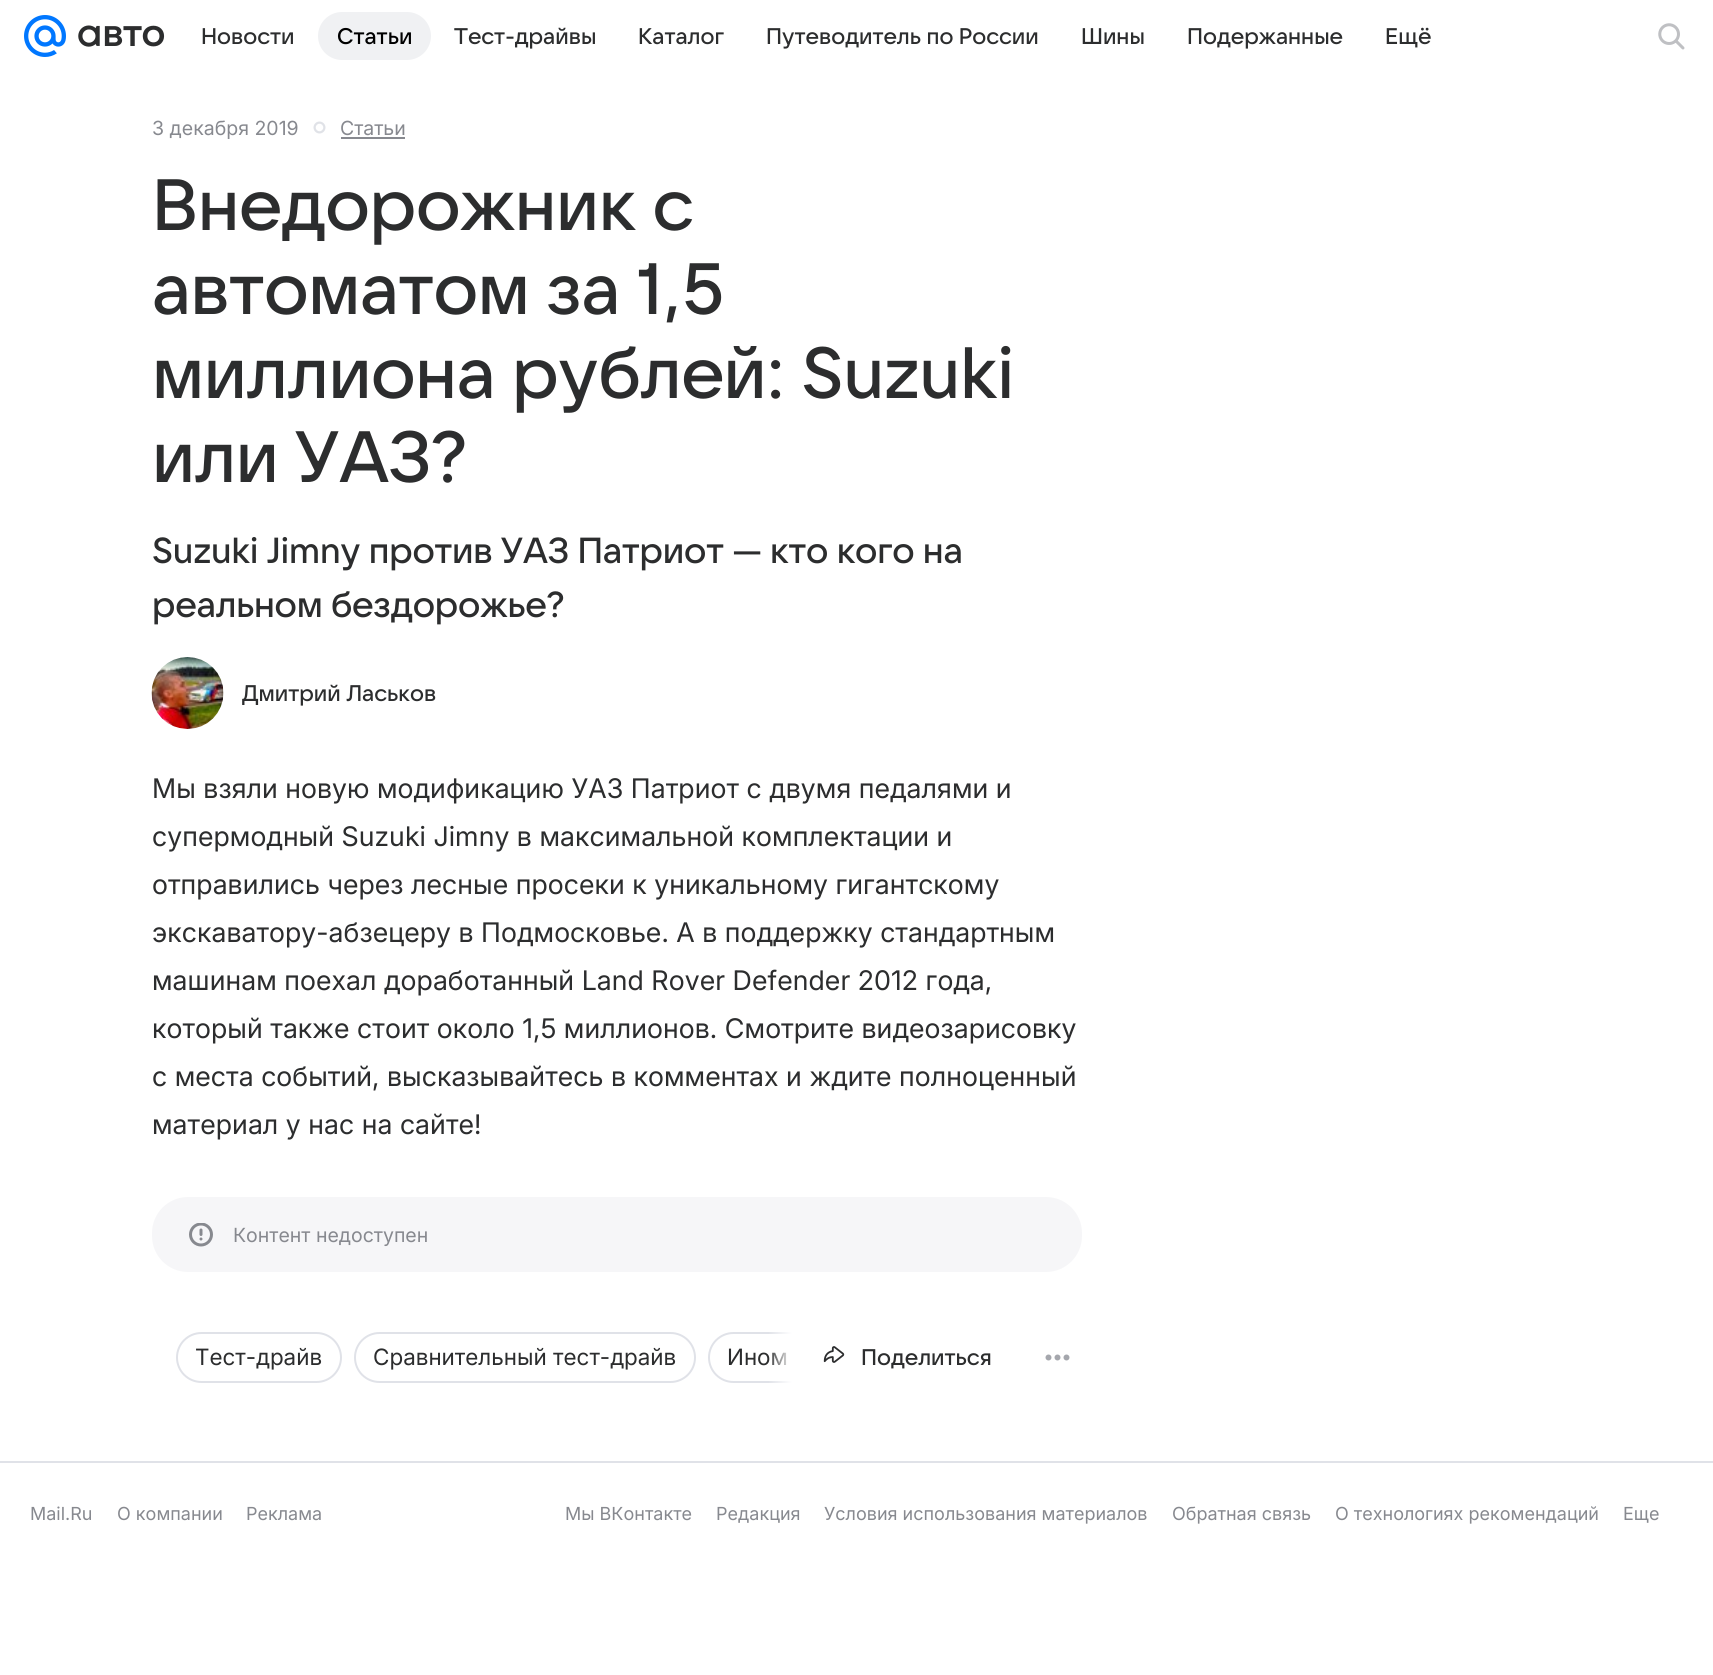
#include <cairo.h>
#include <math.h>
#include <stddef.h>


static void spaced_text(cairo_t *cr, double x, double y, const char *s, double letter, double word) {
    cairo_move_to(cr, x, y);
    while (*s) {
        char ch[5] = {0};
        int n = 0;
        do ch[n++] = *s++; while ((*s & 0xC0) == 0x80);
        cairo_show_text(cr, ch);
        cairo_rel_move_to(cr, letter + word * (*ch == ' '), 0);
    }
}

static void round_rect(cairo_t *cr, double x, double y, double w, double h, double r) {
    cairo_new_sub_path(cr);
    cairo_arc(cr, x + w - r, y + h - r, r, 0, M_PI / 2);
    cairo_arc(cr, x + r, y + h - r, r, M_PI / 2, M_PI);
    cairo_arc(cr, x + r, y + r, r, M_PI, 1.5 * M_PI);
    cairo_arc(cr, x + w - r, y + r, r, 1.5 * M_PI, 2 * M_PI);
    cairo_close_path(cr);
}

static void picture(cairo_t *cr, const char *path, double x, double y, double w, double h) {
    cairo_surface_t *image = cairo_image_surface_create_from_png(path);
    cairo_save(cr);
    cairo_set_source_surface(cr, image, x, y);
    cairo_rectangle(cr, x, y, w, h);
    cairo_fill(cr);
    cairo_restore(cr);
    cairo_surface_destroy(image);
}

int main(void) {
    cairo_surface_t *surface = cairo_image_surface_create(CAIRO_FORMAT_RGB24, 1713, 1675);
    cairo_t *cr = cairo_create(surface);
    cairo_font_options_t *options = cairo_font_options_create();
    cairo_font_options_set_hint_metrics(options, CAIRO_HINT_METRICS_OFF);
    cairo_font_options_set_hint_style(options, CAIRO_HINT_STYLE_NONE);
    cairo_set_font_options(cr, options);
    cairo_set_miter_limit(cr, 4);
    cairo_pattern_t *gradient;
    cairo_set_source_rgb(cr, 1, 1, 1);
    cairo_paint(cr);
    picture(cr, "img1.png", 24, 15, 42, 42);
    picture(cr, "img2.png", 78, 25, 87, 22);
    cairo_select_font_face(cr, "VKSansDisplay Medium", CAIRO_FONT_SLANT_NORMAL, CAIRO_FONT_WEIGHT_NORMAL);
    cairo_set_font_size(cr, 22.5);
    cairo_set_source_rgb(cr, 0.173, 0.176, 0.18);
    cairo_move_to(cr, 201, 44);
    cairo_show_text(cr, "Новости");
    cairo_set_source_rgb(cr, 0.941, 0.945, 0.953);
    round_rect(cr, 318, 12, 113, 48, 24);
    cairo_fill(cr);
    cairo_set_source_rgb(cr, 0, 0, 0);
    cairo_move_to(cr, 337, 44);
    cairo_show_text(cr, "Статьи");
    cairo_set_source_rgb(cr, 0.173, 0.176, 0.18);
    cairo_move_to(cr, 454, 44);
    cairo_show_text(cr, "Тест-драйвы");
    cairo_move_to(cr, 638, 44);
    cairo_show_text(cr, "Каталог");
    cairo_move_to(cr, 766, 44);
    cairo_show_text(cr, "Путеводитель по России");
    cairo_move_to(cr, 1081, 44);
    cairo_show_text(cr, "Шины");
    cairo_move_to(cr, 1187, 44);
    cairo_show_text(cr, "Подержанные");
    cairo_move_to(cr, 1385, 44);
    cairo_show_text(cr, "Ещё");
    picture(cr, "img3.png", 1658, 23, 27, 27);
    cairo_select_font_face(cr, "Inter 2", CAIRO_FONT_SLANT_NORMAL, CAIRO_FONT_WEIGHT_NORMAL);
    cairo_set_font_size(cr, 19.5);
    cairo_set_source_rgb(cr, 0.529, 0.537, 0.561);
    cairo_move_to(cr, 152, 135);
    cairo_show_text(cr, "3 декабря 2019");
    picture(cr, "img4.png", 313, 121, 13, 13);
    cairo_move_to(cr, 340, 135);
    cairo_show_text(cr, "Статьи");
    cairo_rectangle(cr, 341, 137, 64, 2);
    cairo_fill(cr);
    cairo_select_font_face(cr, "VKSansDisplay Medium", CAIRO_FONT_SLANT_NORMAL, CAIRO_FONT_WEIGHT_NORMAL);
    cairo_set_font_size(cr, 72);
    cairo_set_source_rgb(cr, 0.173, 0.176, 0.18);
    spaced_text(cr, 152, 230, "Внедорожник с", -0.4, 0);
    spaced_text(cr, 152, 314, "автоматом за 1,5", -0.4, 0);
    spaced_text(cr, 152, 398, "миллиона рублей: Suzuki", -0.4, 0);
    spaced_text(cr, 152, 482, "или УАЗ?", -0.4, 0);
    cairo_set_font_size(cr, 36);
    spaced_text(cr, 152, 563, "Suzuki Jimny против УАЗ Патриот — кто кого на", -0.2, 0);
    spaced_text(cr, 152, 617, "реальном бездорожье?", -0.2, 0);
    picture(cr, "img5.png", 151, 657, 73, 72);
    cairo_set_font_size(cr, 22.5);
    cairo_move_to(cr, 242, 701);
    cairo_show_text(cr, "Дмитрий Ласьков");
    cairo_select_font_face(cr, "Inter", CAIRO_FONT_SLANT_NORMAL, CAIRO_FONT_WEIGHT_NORMAL);
    cairo_set_font_size(cr, 27);
    spaced_text(cr, 152, 798, "Мы взяли новую модификацию УАЗ Патриот с двумя педалями и", 0.08, 0);
    spaced_text(cr, 152, 846, "супермодный Suzuki Jimny в максимальной комплектации и", 0.08, 0);
    spaced_text(cr, 152, 894, "отправились через лесные просеки к уникальному гигантскому", 0.08, 0);
    spaced_text(cr, 152, 942, "экскаватору-абзецеру в Подмосковье. А в поддержку стандартным", 0.08, 0);
    spaced_text(cr, 152, 990, "машинам поехал доработанный Land Rover Defender 2012 года,", 0.08, 0);
    spaced_text(cr, 152, 1038, "который также стоит около 1,5 миллионов. Смотрите видеозарисовку", 0.08, 0);
    spaced_text(cr, 152, 1086, "с места событий, высказывайтесь в комментах и ждите полноценный", 0.08, 0);
    spaced_text(cr, 152, 1134, "материал у нас на сайте!", 0.08, 0);
    cairo_set_source_rgb(cr, 0.961, 0.961, 0.969);
    round_rect(cr, 152, 1197, 930, 75, 36);
    cairo_fill(cr);
    picture(cr, "img6.png", 189, 1223, 24, 24);
    cairo_select_font_face(cr, "Inter 2", CAIRO_FONT_SLANT_NORMAL, CAIRO_FONT_WEIGHT_NORMAL);
    cairo_set_font_size(cr, 19.5);
    cairo_set_source_rgb(cr, 0.529, 0.537, 0.561);
    cairo_move_to(cr, 233, 1242);
    cairo_show_text(cr, "Контент недоступен");
    cairo_save(cr);
    cairo_rectangle(cr, 152, 1332, 640, 51);
    cairo_clip(cr);
    round_rect(cr, 709, 1333, 150, 49, 24.5);
    cairo_set_source_rgb(cr, 0.878, 0.886, 0.91);
    cairo_stroke(cr);
    cairo_restore(cr);
    cairo_select_font_face(cr, "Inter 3", CAIRO_FONT_SLANT_NORMAL, CAIRO_FONT_WEIGHT_NORMAL);
    cairo_set_font_size(cr, 22.5);
    cairo_set_source_rgb(cr, 0.173, 0.176, 0.18);
    cairo_move_to(cr, 727, 1365);
    cairo_show_text(cr, "Ином");
    gradient = cairo_pattern_create_linear(768, 1358, 792, 1358);
    cairo_pattern_add_color_stop_rgba(gradient, 0, 1, 1, 1, 0);
    cairo_pattern_add_color_stop_rgba(gradient, 1, 1, 1, 1, 1);
    cairo_set_source(cr, gradient);
    cairo_pattern_destroy(gradient);
    cairo_rectangle(cr, 769, 1332, 23, 51);
    cairo_fill(cr);
    round_rect(cr, 177, 1333, 164, 49, 24.5);
    cairo_set_source_rgb(cr, 0.878, 0.886, 0.91);
    cairo_stroke(cr);
    cairo_set_source_rgb(cr, 0.173, 0.176, 0.18);
    cairo_move_to(cr, 195, 1365);
    cairo_show_text(cr, "Тест-драйв");
    round_rect(cr, 355, 1333, 340, 49, 24.5);
    cairo_set_source_rgb(cr, 0.878, 0.886, 0.91);
    cairo_stroke(cr);
    cairo_set_source_rgb(cr, 0.173, 0.176, 0.18);
    cairo_move_to(cr, 373, 1365);
    cairo_show_text(cr, "Сравнительный тест-драйв");
    picture(cr, "img7.png", 823, 1346, 22, 17);
    cairo_select_font_face(cr, "VKSansDisplay Medium", CAIRO_FONT_SLANT_NORMAL, CAIRO_FONT_WEIGHT_NORMAL);
    cairo_move_to(cr, 861, 1365);
    cairo_show_text(cr, "Поделиться");
    picture(cr, "img8.png", 1045, 1354, 25, 7);
    cairo_set_source_rgb(cr, 0.878, 0.886, 0.91);
    cairo_rectangle(cr, 0, 1461, 1713, 2);
    cairo_fill(cr);
    cairo_select_font_face(cr, "Inter 2", CAIRO_FONT_SLANT_NORMAL, CAIRO_FONT_WEIGHT_NORMAL);
    cairo_set_font_size(cr, 18);
    cairo_set_source_rgb(cr, 0.529, 0.537, 0.561);
    cairo_move_to(cr, 30, 1520);
    cairo_show_text(cr, "Mail.Ru");
    cairo_move_to(cr, 117, 1520);
    cairo_show_text(cr, "О компании");
    cairo_move_to(cr, 246, 1520);
    cairo_show_text(cr, "Реклама");
    cairo_move_to(cr, 565, 1520);
    cairo_show_text(cr, "Мы ВКонтакте");
    cairo_move_to(cr, 716, 1520);
    cairo_show_text(cr, "Редакция");
    cairo_move_to(cr, 824, 1520);
    cairo_show_text(cr, "Условия использования материалов");
    cairo_move_to(cr, 1172, 1520);
    cairo_show_text(cr, "Обратная связь");
    cairo_move_to(cr, 1335, 1520);
    cairo_show_text(cr, "О технологиях рекомендаций");
    cairo_move_to(cr, 1623, 1520);
    cairo_show_text(cr, "Еще");
    cairo_surface_write_to_png(surface, "page.png");
    cairo_font_options_destroy(options);
    cairo_destroy(cr);
    cairo_surface_destroy(surface);
    return 0;
}
